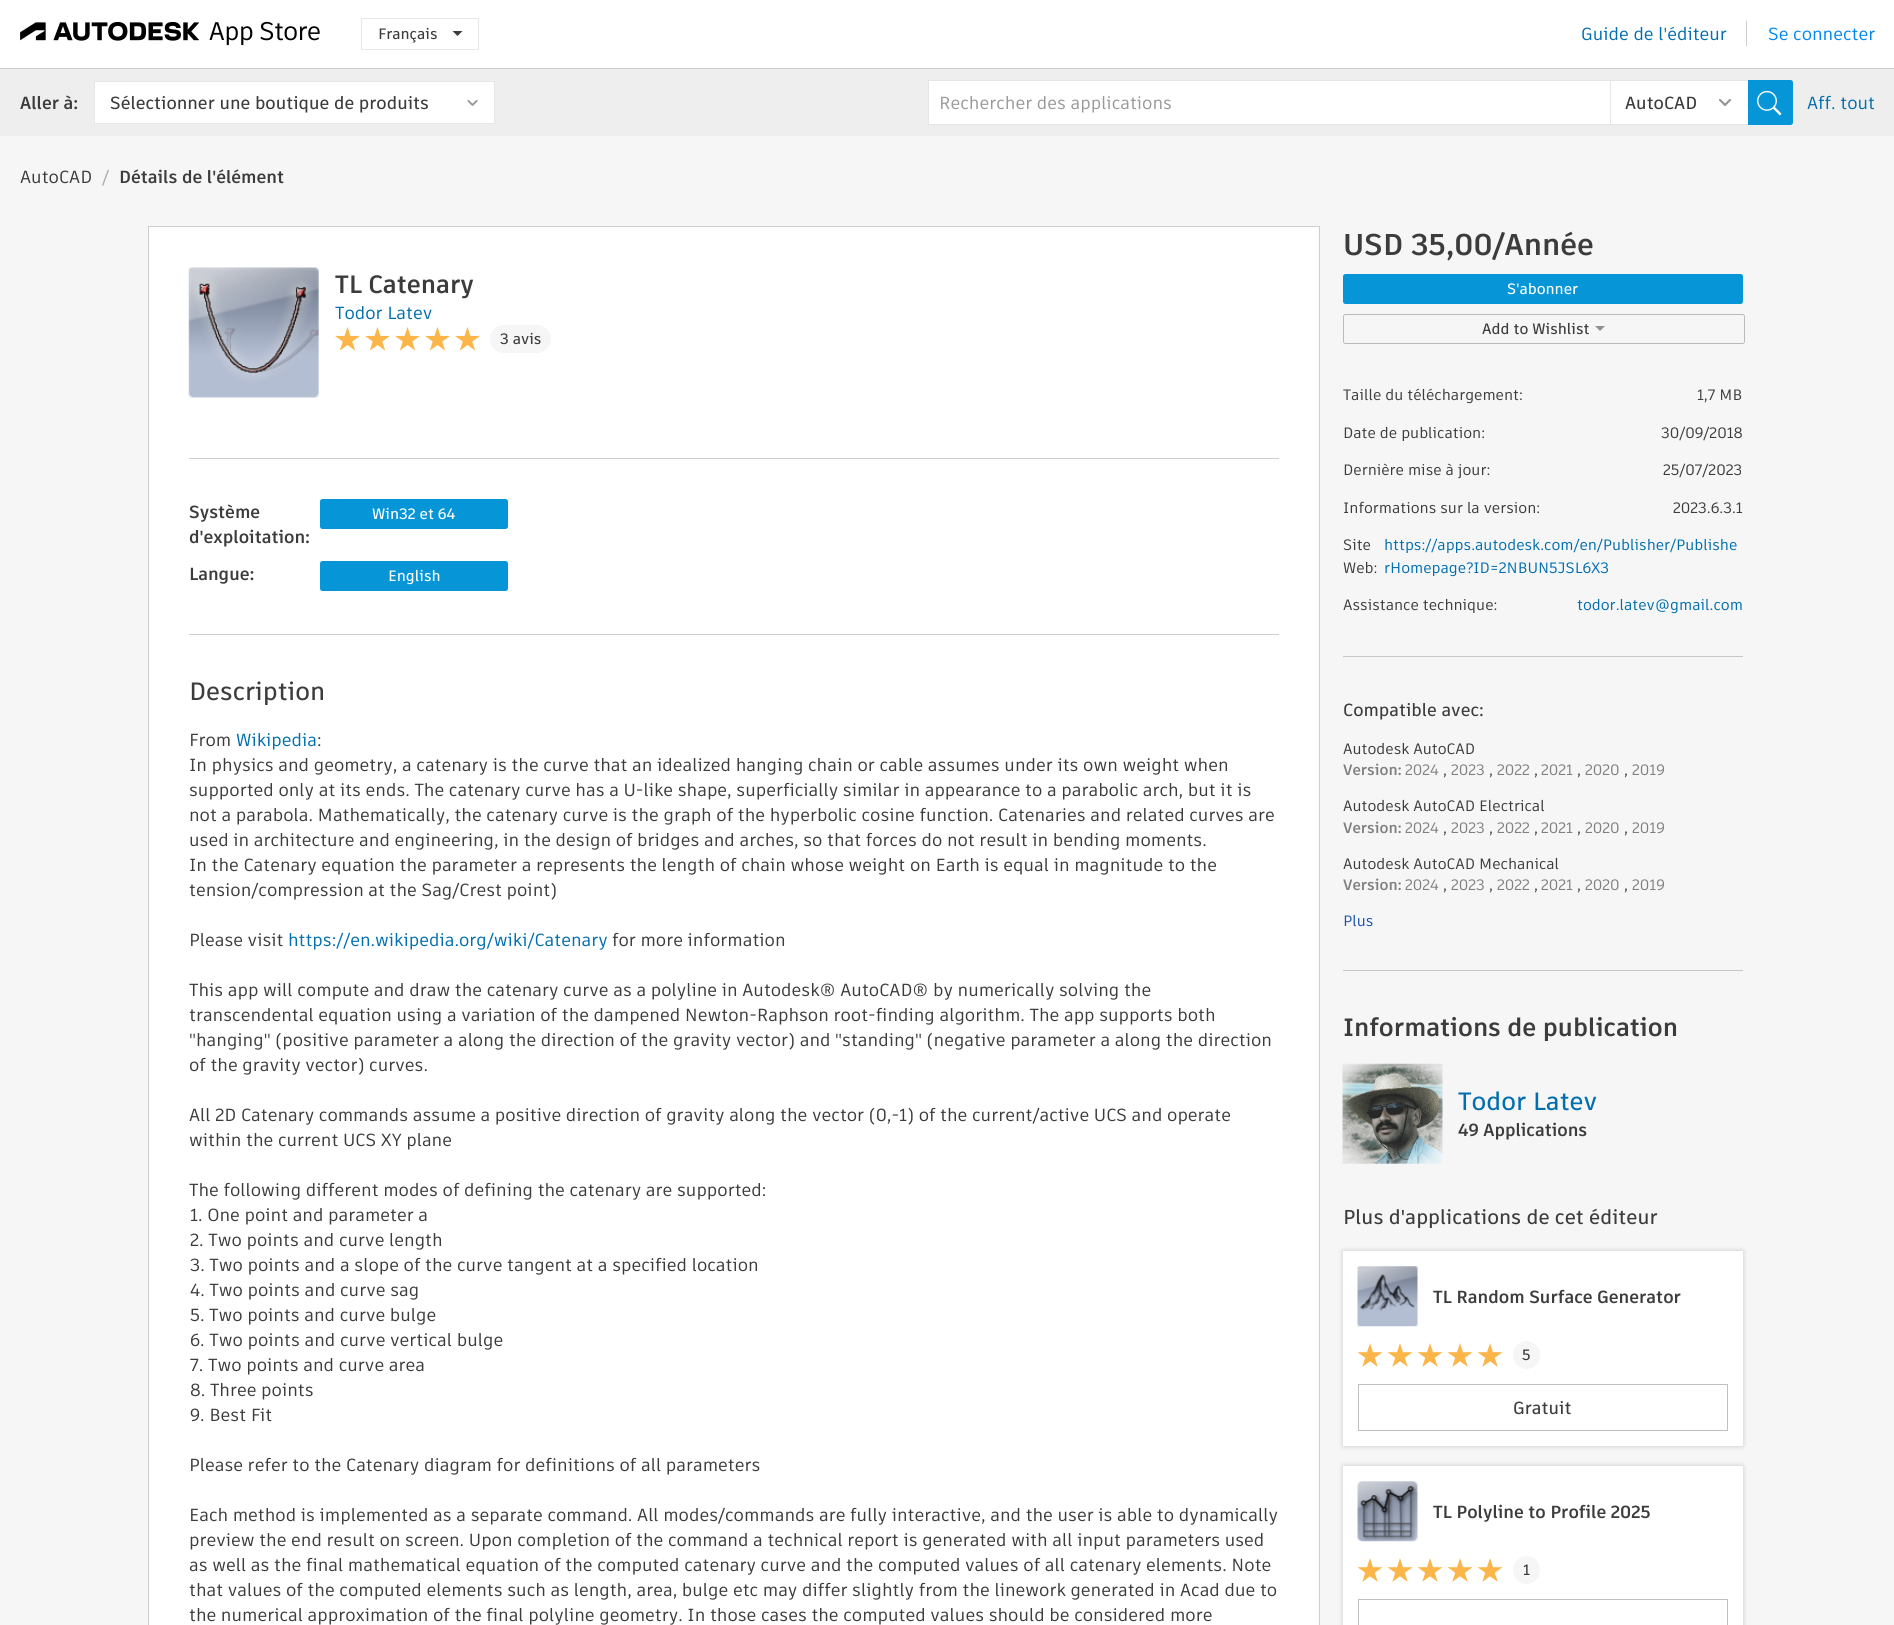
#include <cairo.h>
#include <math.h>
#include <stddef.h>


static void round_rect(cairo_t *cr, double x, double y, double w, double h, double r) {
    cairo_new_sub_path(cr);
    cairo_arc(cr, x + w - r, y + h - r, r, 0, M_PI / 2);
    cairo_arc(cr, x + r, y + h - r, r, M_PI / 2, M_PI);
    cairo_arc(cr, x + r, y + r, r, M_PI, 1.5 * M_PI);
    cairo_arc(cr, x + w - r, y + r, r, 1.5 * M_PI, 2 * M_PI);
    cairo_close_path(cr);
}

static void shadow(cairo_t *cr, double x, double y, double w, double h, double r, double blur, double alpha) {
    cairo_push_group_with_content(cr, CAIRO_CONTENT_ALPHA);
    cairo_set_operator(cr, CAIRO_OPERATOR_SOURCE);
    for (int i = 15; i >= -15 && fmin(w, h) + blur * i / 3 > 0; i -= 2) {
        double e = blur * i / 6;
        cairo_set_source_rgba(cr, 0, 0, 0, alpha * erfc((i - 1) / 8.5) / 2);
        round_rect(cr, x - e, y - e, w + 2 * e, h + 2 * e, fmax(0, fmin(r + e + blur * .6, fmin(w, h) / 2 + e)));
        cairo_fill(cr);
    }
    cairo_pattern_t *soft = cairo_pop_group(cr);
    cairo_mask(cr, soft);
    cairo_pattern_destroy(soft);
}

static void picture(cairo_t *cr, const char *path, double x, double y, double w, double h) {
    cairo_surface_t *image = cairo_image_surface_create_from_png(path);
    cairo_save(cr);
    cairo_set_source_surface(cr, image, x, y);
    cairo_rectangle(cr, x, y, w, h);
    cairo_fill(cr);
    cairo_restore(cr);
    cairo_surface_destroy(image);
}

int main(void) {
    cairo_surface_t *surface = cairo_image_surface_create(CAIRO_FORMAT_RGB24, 1894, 1625);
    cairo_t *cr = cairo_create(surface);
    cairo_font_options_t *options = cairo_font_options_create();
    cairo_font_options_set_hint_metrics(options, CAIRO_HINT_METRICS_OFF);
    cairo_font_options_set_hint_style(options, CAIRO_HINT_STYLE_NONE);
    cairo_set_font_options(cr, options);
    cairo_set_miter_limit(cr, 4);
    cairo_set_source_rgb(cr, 0.961, 0.961, 0.961);
    cairo_paint(cr);
    cairo_set_source_rgb(cr, 1, 1, 1);
    cairo_rectangle(cr, 0, 0, 1894, 68);
    cairo_fill(cr);
    cairo_set_source_rgb(cr, 0.808, 0.808, 0.808);
    cairo_rectangle(cr, 0, 68, 1894, 1);
    cairo_fill(cr);
    picture(cr, "img1.png", 20, 21, 300, 25);
    cairo_rectangle(cr, 361.5, 18.5, 117, 31);
    cairo_set_source_rgb(cr, 0.902, 0.902, 0.902);
    cairo_set_line_width(cr, 1);
    cairo_stroke(cr);
    cairo_select_font_face(cr, "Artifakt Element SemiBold", CAIRO_FONT_SLANT_NORMAL, CAIRO_FONT_WEIGHT_NORMAL);
    cairo_set_font_size(cr, 15);
    cairo_set_source_rgb(cr, 0.235, 0.235, 0.235);
    cairo_move_to(cr, 378, 39);
    cairo_show_text(cr, "Français");
    cairo_new_path(cr);
    cairo_move_to(cr, 452.5, 31);
    cairo_line_to(cr, 462.5, 31);
    cairo_line_to(cr, 457.5, 36);
    cairo_close_path(cr);
    cairo_fill(cr);
    cairo_set_source_rgb(cr, 0.808, 0.808, 0.808);
    cairo_rectangle(cr, 1746, 21, 1, 25);
    cairo_fill(cr);
    cairo_select_font_face(cr, "Artifakt Element Medium", CAIRO_FONT_SLANT_NORMAL, CAIRO_FONT_WEIGHT_NORMAL);
    cairo_set_font_size(cr, 17.5);
    cairo_set_source_rgb(cr, 0, 0.431, 0.686);
    cairo_move_to(cr, 1581, 40);
    cairo_show_text(cr, "Guide de l'éditeur");
    cairo_set_source_rgb(cr, 0, 0.533, 0.933);
    cairo_move_to(cr, 1768, 40);
    cairo_show_text(cr, "Se connecter");
    cairo_set_source_rgb(cr, 0.933, 0.933, 0.933);
    cairo_rectangle(cr, 0, 69, 1894, 67);
    cairo_fill(cr);
    cairo_select_font_face(cr, "Artifakt Element", CAIRO_FONT_SLANT_NORMAL, CAIRO_FONT_WEIGHT_BOLD);
    cairo_set_source_rgb(cr, 0.235, 0.235, 0.235);
    cairo_move_to(cr, 20, 109);
    cairo_show_text(cr, "Aller à:");
    cairo_set_source_rgb(cr, 1, 1, 1);
    cairo_rectangle(cr, 94.5, 81.5, 400, 42);
    cairo_fill_preserve(cr);
    cairo_set_source_rgb(cr, 0.902, 0.902, 0.902);
    cairo_stroke(cr);
    cairo_select_font_face(cr, "Artifakt Element SemiBold", CAIRO_FONT_SLANT_NORMAL, CAIRO_FONT_WEIGHT_NORMAL);
    cairo_set_source_rgb(cr, 0.235, 0.235, 0.235);
    cairo_move_to(cr, 110, 109);
    cairo_show_text(cr, "Sélectionner une boutique de produits");
    picture(cr, "img2.png", 467, 100, 11, 6);
    cairo_set_source_rgb(cr, 1, 1, 1);
    cairo_rectangle(cr, 1611, 80, 182, 45);
    cairo_fill(cr);
    cairo_set_source_rgb(cr, 0.902, 0.902, 0.902);
    cairo_new_path(cr);
    cairo_move_to(cr, 1609, 80);
    cairo_line_to(cr, 1748, 80);
    cairo_line_to(cr, 1748, 81);
    cairo_line_to(cr, 1610, 81);
    cairo_close_path(cr);
    cairo_fill(cr);
    cairo_new_path(cr);
    cairo_move_to(cr, 1748, 125);
    cairo_line_to(cr, 1609, 125);
    cairo_line_to(cr, 1610, 124);
    cairo_line_to(cr, 1748, 124);
    cairo_close_path(cr);
    cairo_fill(cr);
    cairo_set_source_rgb(cr, 1, 1, 1);
    cairo_rectangle(cr, 928.5, 80.5, 682, 44);
    cairo_fill_preserve(cr);
    cairo_set_source_rgb(cr, 0.902, 0.902, 0.902);
    cairo_stroke(cr);
    cairo_select_font_face(cr, "Artifakt Element Medium", CAIRO_FONT_SLANT_NORMAL, CAIRO_FONT_WEIGHT_NORMAL);
    cairo_set_source_rgb(cr, 0.6, 0.6, 0.6);
    cairo_move_to(cr, 939, 109);
    cairo_show_text(cr, "Rechercher des applications");
    cairo_select_font_face(cr, "Artifakt Element SemiBold", CAIRO_FONT_SLANT_NORMAL, CAIRO_FONT_WEIGHT_NORMAL);
    cairo_set_source_rgb(cr, 0.235, 0.235, 0.235);
    cairo_move_to(cr, 1625, 109);
    cairo_show_text(cr, "AutoCAD");
    picture(cr, "img3.png", 1719, 99, 12, 7);
    cairo_set_source_rgb(cr, 0.024, 0.588, 0.843);
    cairo_new_path(cr);
    cairo_move_to(cr, 1748, 80);
    cairo_line_to(cr, 1790.5, 80);
    cairo_curve_to(cr, 1792, 80, 1793, 81, 1793, 82.5);
    cairo_line_to(cr, 1793, 122.5);
    cairo_curve_to(cr, 1793, 124, 1792, 125, 1790.5, 125);
    cairo_line_to(cr, 1748, 125);
    cairo_close_path(cr);
    cairo_fill(cr);
    picture(cr, "img4.png", 1757, 90, 25, 26);
    cairo_select_font_face(cr, "Artifakt Element Medium", CAIRO_FONT_SLANT_NORMAL, CAIRO_FONT_WEIGHT_NORMAL);
    cairo_set_source_rgb(cr, 0, 0.431, 0.686);
    cairo_move_to(cr, 1807, 109);
    cairo_show_text(cr, "Aff. tout");
    cairo_set_source_rgb(cr, 0.235, 0.235, 0.235);
    cairo_move_to(cr, 20, 183);
    cairo_show_text(cr, "AutoCAD");
    cairo_set_source_rgb(cr, 0.671, 0.671, 0.671);
    cairo_move_to(cr, 102, 183);
    cairo_show_text(cr, "/");
    cairo_select_font_face(cr, "Artifakt Element", CAIRO_FONT_SLANT_NORMAL, CAIRO_FONT_WEIGHT_BOLD);
    cairo_set_source_rgb(cr, 0.235, 0.235, 0.235);
    cairo_move_to(cr, 119, 183);
    cairo_show_text(cr, "Détails de l'élément");
    cairo_set_source_rgb(cr, 1, 1, 1);
    cairo_rectangle(cr, 148.5, 226.5, 1171, 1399);
    cairo_fill_preserve(cr);
    cairo_set_source_rgb(cr, 0.808, 0.808, 0.808);
    cairo_stroke(cr);
    cairo_rectangle(cr, 189, 458, 1090, 1);
    cairo_fill(cr);
    picture(cr, "img5.png", 188, 267, 131, 131);
    cairo_set_font_size(cr, 25);
    cairo_set_source_rgb(cr, 0.235, 0.235, 0.235);
    cairo_move_to(cr, 335, 293);
    cairo_show_text(cr, "TL Catenary");
    cairo_select_font_face(cr, "Artifakt Element Medium", CAIRO_FONT_SLANT_NORMAL, CAIRO_FONT_WEIGHT_NORMAL);
    cairo_set_font_size(cr, 17.5);
    cairo_set_source_rgb(cr, 0, 0.431, 0.686);
    cairo_move_to(cr, 335, 319);
    cairo_show_text(cr, "Todor Latev");
    picture(cr, "img6.png", 335, 327, 25, 24);
    picture(cr, "img6.png", 365, 327, 25, 24);
    picture(cr, "img6.png", 395, 327, 25, 24);
    picture(cr, "img6.png", 425, 327, 25, 24);
    picture(cr, "img6.png", 455, 327, 25, 24);
    cairo_set_source_rgb(cr, 0.961, 0.961, 0.961);
    round_rect(cr, 490, 325, 61, 28, 14);
    cairo_fill(cr);
    cairo_select_font_face(cr, "Artifakt Element SemiBold", CAIRO_FONT_SLANT_NORMAL, CAIRO_FONT_WEIGHT_NORMAL);
    cairo_set_font_size(cr, 15);
    cairo_set_source_rgb(cr, 0.235, 0.235, 0.235);
    cairo_move_to(cr, 500, 344);
    cairo_show_text(cr, "3 avis");
    cairo_set_source_rgb(cr, 0.808, 0.808, 0.808);
    cairo_rectangle(cr, 189, 634, 1090, 1);
    cairo_fill(cr);
    cairo_select_font_face(cr, "Artifakt Element", CAIRO_FONT_SLANT_NORMAL, CAIRO_FONT_WEIGHT_BOLD);
    cairo_set_font_size(cr, 17.5);
    cairo_set_source_rgb(cr, 0.235, 0.235, 0.235);
    cairo_move_to(cr, 189, 518);
    cairo_show_text(cr, "Système");
    cairo_move_to(cr, 189, 543);
    cairo_show_text(cr, "d'exploitation:");
    cairo_set_source_rgb(cr, 0.024, 0.588, 0.843);
    round_rect(cr, 320, 499, 188, 30, 2.5);
    cairo_fill(cr);
    cairo_select_font_face(cr, "Artifakt Element SemiBold", CAIRO_FONT_SLANT_NORMAL, CAIRO_FONT_WEIGHT_NORMAL);
    cairo_set_font_size(cr, 15);
    cairo_set_source_rgb(cr, 1, 1, 1);
    cairo_move_to(cr, 372, 519);
    cairo_show_text(cr, "Win32 et 64");
    cairo_select_font_face(cr, "Artifakt Element", CAIRO_FONT_SLANT_NORMAL, CAIRO_FONT_WEIGHT_BOLD);
    cairo_set_font_size(cr, 17.5);
    cairo_set_source_rgb(cr, 0.235, 0.235, 0.235);
    cairo_move_to(cr, 189, 580);
    cairo_show_text(cr, "Langue:");
    cairo_set_source_rgb(cr, 0.024, 0.588, 0.843);
    round_rect(cr, 320, 561, 188, 30, 2.5);
    cairo_fill(cr);
    cairo_select_font_face(cr, "Artifakt Element SemiBold", CAIRO_FONT_SLANT_NORMAL, CAIRO_FONT_WEIGHT_NORMAL);
    cairo_set_font_size(cr, 15);
    cairo_set_source_rgb(cr, 1, 1, 1);
    cairo_move_to(cr, 388, 581);
    cairo_show_text(cr, "English");
    cairo_set_font_size(cr, 25);
    cairo_set_source_rgb(cr, 0.235, 0.235, 0.235);
    cairo_move_to(cr, 189, 700);
    cairo_show_text(cr, "Description");
    cairo_select_font_face(cr, "Artifakt Element Medium", CAIRO_FONT_SLANT_NORMAL, CAIRO_FONT_WEIGHT_NORMAL);
    cairo_set_font_size(cr, 17.5);
    cairo_move_to(cr, 189, 746);
    cairo_show_text(cr, "From");
    cairo_set_source_rgb(cr, 0, 0.431, 0.686);
    cairo_move_to(cr, 236, 746);
    cairo_show_text(cr, "Wikipedia");
    cairo_set_source_rgb(cr, 0.235, 0.235, 0.235);
    cairo_move_to(cr, 317, 746);
    cairo_show_text(cr, ":");
    cairo_move_to(cr, 189, 771);
    cairo_show_text(cr, "In physics and geometry, a catenary is the curve that an idealized hanging chain or cable assumes under its own weight when");
    cairo_move_to(cr, 189, 796);
    cairo_show_text(cr, "supported only at its ends. The catenary curve has a U-like shape, superficially similar in appearance to a parabolic arch, but it is");
    cairo_move_to(cr, 189, 821);
    cairo_show_text(cr, "not a parabola. Mathematically, the catenary curve is the graph of the hyperbolic cosine function. Catenaries and related curves are");
    cairo_move_to(cr, 189, 846);
    cairo_show_text(cr, "used in architecture and engineering, in the design of bridges and arches, so that forces do not result in bending moments.");
    cairo_move_to(cr, 189, 871);
    cairo_show_text(cr, "In the Catenary equation the parameter a represents the length of chain whose weight on Earth is equal in magnitude to the");
    cairo_move_to(cr, 189, 896);
    cairo_show_text(cr, "tension/compression at the Sag/Crest point)");
    cairo_move_to(cr, 189, 946);
    cairo_show_text(cr, "Please visit");
    cairo_set_source_rgb(cr, 0, 0.431, 0.686);
    cairo_move_to(cr, 288, 946);
    cairo_show_text(cr, "https://en.wikipedia.org/wiki/Catenary");
    cairo_set_source_rgb(cr, 0.235, 0.235, 0.235);
    cairo_move_to(cr, 612, 946);
    cairo_show_text(cr, "for more information");
    cairo_move_to(cr, 189, 996);
    cairo_show_text(cr, "This app will compute and draw the catenary curve as a polyline in Autodesk® AutoCAD® by numerically solving the");
    cairo_move_to(cr, 189, 1021);
    cairo_show_text(cr, "transcendental equation using a variation of the dampened Newton-Raphson root-finding algorithm. The app supports both");
    cairo_move_to(cr, 189, 1046);
    cairo_show_text(cr, "\"hanging\" (positive parameter a along the direction of the gravity vector) and \"standing\" (negative parameter a along the direction");
    cairo_move_to(cr, 189, 1071);
    cairo_show_text(cr, "of the gravity vector) curves.");
    cairo_move_to(cr, 189, 1121);
    cairo_show_text(cr, "All 2D Catenary commands assume a positive direction of gravity along the vector (0,-1) of the current/active UCS and operate");
    cairo_move_to(cr, 189, 1146);
    cairo_show_text(cr, "within the current UCS XY plane");
    cairo_move_to(cr, 189, 1196);
    cairo_show_text(cr, "The following different modes of defining the catenary are supported:");
    cairo_move_to(cr, 190, 1221);
    cairo_show_text(cr, "1. One point and parameter a");
    cairo_move_to(cr, 190, 1246);
    cairo_show_text(cr, "2. Two points and curve length");
    cairo_move_to(cr, 190, 1271);
    cairo_show_text(cr, "3. Two points and a slope of the curve tangent at a specified location");
    cairo_move_to(cr, 190, 1296);
    cairo_show_text(cr, "4. Two points and curve sag");
    cairo_move_to(cr, 190, 1321);
    cairo_show_text(cr, "5. Two points and curve bulge");
    cairo_move_to(cr, 190, 1346);
    cairo_show_text(cr, "6. Two points and curve vertical bulge");
    cairo_move_to(cr, 190, 1371);
    cairo_show_text(cr, "7. Two points and curve area");
    cairo_move_to(cr, 190, 1396);
    cairo_show_text(cr, "8. Three points");
    cairo_move_to(cr, 190, 1421);
    cairo_show_text(cr, "9. Best Fit");
    cairo_move_to(cr, 189, 1471);
    cairo_show_text(cr, "Please refer to the Catenary diagram for definitions of all parameters");
    cairo_move_to(cr, 189, 1521);
    cairo_show_text(cr, "Each method is implemented as a separate command. All modes/commands are fully interactive, and the user is able to dynamically");
    cairo_move_to(cr, 189, 1546);
    cairo_show_text(cr, "preview the end result on screen. Upon completion of the command a technical report is generated with all input parameters used");
    cairo_move_to(cr, 189, 1571);
    cairo_show_text(cr, "as well as the final mathematical equation of the computed catenary curve and the computed values of all catenary elements. Note");
    cairo_move_to(cr, 189, 1596);
    cairo_show_text(cr, "that values of the computed elements such as length, area, bulge etc may differ slightly from the linework generated in Acad due to");
    cairo_move_to(cr, 189, 1621);
    cairo_show_text(cr, "the numerical approximation of the final polyline geometry. In those cases the computed values should be considered more");
    cairo_set_source_rgb(cr, 0.78, 0.78, 0.78);
    cairo_rectangle(cr, 1343, 970, 400, 1);
    cairo_fill(cr);
    cairo_select_font_face(cr, "Artifakt Element", CAIRO_FONT_SLANT_NORMAL, CAIRO_FONT_WEIGHT_BOLD);
    cairo_set_font_size(cr, 30);
    cairo_set_source_rgb(cr, 0.235, 0.235, 0.235);
    cairo_move_to(cr, 1343, 255);
    cairo_show_text(cr, "USD 35,00/Année");
    cairo_set_source_rgb(cr, 0.024, 0.588, 0.843);
    round_rect(cr, 1343, 274, 400, 30, 2.5);
    cairo_fill(cr);
    cairo_select_font_face(cr, "Artifakt Element SemiBold", CAIRO_FONT_SLANT_NORMAL, CAIRO_FONT_WEIGHT_NORMAL);
    cairo_set_font_size(cr, 15);
    cairo_set_source_rgb(cr, 1, 1, 1);
    cairo_move_to(cr, 1507, 294);
    cairo_show_text(cr, "S'abonner");
    round_rect(cr, 1343.5, 314.5, 401, 29, 2);
    cairo_set_source_rgb(cr, 0.733, 0.733, 0.733);
    cairo_stroke(cr);
    cairo_set_source_rgb(cr, 0.235, 0.235, 0.235);
    cairo_move_to(cr, 1482, 334);
    cairo_show_text(cr, "Add to Wishlist");
    cairo_set_source_rgb(cr, 0.569, 0.569, 0.569);
    cairo_new_path(cr);
    cairo_move_to(cr, 1595, 326);
    cairo_line_to(cr, 1605, 326);
    cairo_line_to(cr, 1600, 331);
    cairo_close_path(cr);
    cairo_fill(cr);
    cairo_select_font_face(cr, "Artifakt Element Medium", CAIRO_FONT_SLANT_NORMAL, CAIRO_FONT_WEIGHT_NORMAL);
    cairo_set_source_rgb(cr, 0.235, 0.235, 0.235);
    cairo_move_to(cr, 1343, 400);
    cairo_show_text(cr, "Taille du téléchargement:");
    cairo_move_to(cr, 1697, 400);
    cairo_show_text(cr, "1,7 MB");
    cairo_move_to(cr, 1343, 438);
    cairo_show_text(cr, "Date de publication:");
    cairo_move_to(cr, 1661, 438);
    cairo_show_text(cr, "30/09/2018");
    cairo_move_to(cr, 1343, 475);
    cairo_show_text(cr, "Dernière mise à jour:");
    cairo_move_to(cr, 1663, 475);
    cairo_show_text(cr, "25/07/2023");
    cairo_move_to(cr, 1343, 513);
    cairo_show_text(cr, "Informations sur la version:");
    cairo_move_to(cr, 1673, 513);
    cairo_show_text(cr, "2023.6.3.1");
    cairo_move_to(cr, 1343, 550);
    cairo_show_text(cr, "Site");
    cairo_move_to(cr, 1343, 573);
    cairo_show_text(cr, "Web:");
    cairo_set_source_rgb(cr, 0, 0.431, 0.686);
    cairo_move_to(cr, 1384, 550);
    cairo_show_text(cr, "https://apps.autodesk.com/en/Publisher/Publishe");
    cairo_move_to(cr, 1384, 573);
    cairo_show_text(cr, "rHomepage?ID=2NBUN5JSL6X3");
    cairo_set_source_rgb(cr, 0.235, 0.235, 0.235);
    cairo_move_to(cr, 1343, 610);
    cairo_show_text(cr, "Assistance technique:");
    cairo_set_source_rgb(cr, 0, 0.431, 0.686);
    cairo_move_to(cr, 1577, 610);
    cairo_show_text(cr, "todor.latev@gmail.com");
    cairo_set_source_rgb(cr, 0.78, 0.78, 0.78);
    cairo_rectangle(cr, 1343, 656, 400, 1);
    cairo_fill(cr);
    cairo_select_font_face(cr, "Artifakt Element SemiBold", CAIRO_FONT_SLANT_NORMAL, CAIRO_FONT_WEIGHT_NORMAL);
    cairo_set_font_size(cr, 17.5);
    cairo_set_source_rgb(cr, 0.235, 0.235, 0.235);
    cairo_move_to(cr, 1343, 716);
    cairo_show_text(cr, "Compatible avec:");
    cairo_select_font_face(cr, "Artifakt Element Medium", CAIRO_FONT_SLANT_NORMAL, CAIRO_FONT_WEIGHT_NORMAL);
    cairo_set_font_size(cr, 15);
    cairo_move_to(cr, 1343, 754);
    cairo_show_text(cr, "Autodesk AutoCAD");
    cairo_select_font_face(cr, "Artifakt Element", CAIRO_FONT_SLANT_NORMAL, CAIRO_FONT_WEIGHT_BOLD);
    cairo_set_source_rgb(cr, 0.502, 0.502, 0.502);
    cairo_move_to(cr, 1343, 775);
    cairo_show_text(cr, "Version:");
    cairo_select_font_face(cr, "Artifakt Element Medium", CAIRO_FONT_SLANT_NORMAL, CAIRO_FONT_WEIGHT_NORMAL);
    cairo_move_to(cr, 1405, 775);
    cairo_show_text(cr, "2024");
    cairo_set_source_rgb(cr, 0.235, 0.235, 0.235);
    cairo_move_to(cr, 1443, 775);
    cairo_show_text(cr, ",");
    cairo_set_source_rgb(cr, 0.502, 0.502, 0.502);
    cairo_move_to(cr, 1451, 775);
    cairo_show_text(cr, "2023");
    cairo_set_source_rgb(cr, 0.235, 0.235, 0.235);
    cairo_move_to(cr, 1489, 775);
    cairo_show_text(cr, ",");
    cairo_set_source_rgb(cr, 0.502, 0.502, 0.502);
    cairo_move_to(cr, 1497, 775);
    cairo_show_text(cr, "2022");
    cairo_set_source_rgb(cr, 0.235, 0.235, 0.235);
    cairo_move_to(cr, 1534, 775);
    cairo_show_text(cr, ",");
    cairo_set_source_rgb(cr, 0.502, 0.502, 0.502);
    cairo_move_to(cr, 1541, 775);
    cairo_show_text(cr, "2021");
    cairo_set_source_rgb(cr, 0.235, 0.235, 0.235);
    cairo_move_to(cr, 1577, 775);
    cairo_show_text(cr, ",");
    cairo_set_source_rgb(cr, 0.502, 0.502, 0.502);
    cairo_move_to(cr, 1585, 775);
    cairo_show_text(cr, "2020");
    cairo_set_source_rgb(cr, 0.235, 0.235, 0.235);
    cairo_move_to(cr, 1624, 775);
    cairo_show_text(cr, ",");
    cairo_set_source_rgb(cr, 0.502, 0.502, 0.502);
    cairo_move_to(cr, 1632, 775);
    cairo_show_text(cr, "2019");
    cairo_set_source_rgb(cr, 0.235, 0.235, 0.235);
    cairo_move_to(cr, 1343, 811);
    cairo_show_text(cr, "Autodesk AutoCAD Electrical");
    cairo_select_font_face(cr, "Artifakt Element", CAIRO_FONT_SLANT_NORMAL, CAIRO_FONT_WEIGHT_BOLD);
    cairo_set_source_rgb(cr, 0.502, 0.502, 0.502);
    cairo_move_to(cr, 1343, 833);
    cairo_show_text(cr, "Version:");
    cairo_select_font_face(cr, "Artifakt Element Medium", CAIRO_FONT_SLANT_NORMAL, CAIRO_FONT_WEIGHT_NORMAL);
    cairo_move_to(cr, 1405, 833);
    cairo_show_text(cr, "2024");
    cairo_set_source_rgb(cr, 0.235, 0.235, 0.235);
    cairo_move_to(cr, 1443, 833);
    cairo_show_text(cr, ",");
    cairo_set_source_rgb(cr, 0.502, 0.502, 0.502);
    cairo_move_to(cr, 1451, 833);
    cairo_show_text(cr, "2023");
    cairo_set_source_rgb(cr, 0.235, 0.235, 0.235);
    cairo_move_to(cr, 1489, 833);
    cairo_show_text(cr, ",");
    cairo_set_source_rgb(cr, 0.502, 0.502, 0.502);
    cairo_move_to(cr, 1497, 833);
    cairo_show_text(cr, "2022");
    cairo_set_source_rgb(cr, 0.235, 0.235, 0.235);
    cairo_move_to(cr, 1534, 833);
    cairo_show_text(cr, ",");
    cairo_set_source_rgb(cr, 0.502, 0.502, 0.502);
    cairo_move_to(cr, 1541, 833);
    cairo_show_text(cr, "2021");
    cairo_set_source_rgb(cr, 0.235, 0.235, 0.235);
    cairo_move_to(cr, 1577, 833);
    cairo_show_text(cr, ",");
    cairo_set_source_rgb(cr, 0.502, 0.502, 0.502);
    cairo_move_to(cr, 1585, 833);
    cairo_show_text(cr, "2020");
    cairo_set_source_rgb(cr, 0.235, 0.235, 0.235);
    cairo_move_to(cr, 1624, 833);
    cairo_show_text(cr, ",");
    cairo_set_source_rgb(cr, 0.502, 0.502, 0.502);
    cairo_move_to(cr, 1632, 833);
    cairo_show_text(cr, "2019");
    cairo_set_source_rgb(cr, 0.235, 0.235, 0.235);
    cairo_move_to(cr, 1343, 869);
    cairo_show_text(cr, "Autodesk AutoCAD Mechanical");
    cairo_select_font_face(cr, "Artifakt Element", CAIRO_FONT_SLANT_NORMAL, CAIRO_FONT_WEIGHT_BOLD);
    cairo_set_source_rgb(cr, 0.502, 0.502, 0.502);
    cairo_move_to(cr, 1343, 890);
    cairo_show_text(cr, "Version:");
    cairo_select_font_face(cr, "Artifakt Element Medium", CAIRO_FONT_SLANT_NORMAL, CAIRO_FONT_WEIGHT_NORMAL);
    cairo_move_to(cr, 1405, 890);
    cairo_show_text(cr, "2024");
    cairo_set_source_rgb(cr, 0.235, 0.235, 0.235);
    cairo_move_to(cr, 1443, 890);
    cairo_show_text(cr, ",");
    cairo_set_source_rgb(cr, 0.502, 0.502, 0.502);
    cairo_move_to(cr, 1451, 890);
    cairo_show_text(cr, "2023");
    cairo_set_source_rgb(cr, 0.235, 0.235, 0.235);
    cairo_move_to(cr, 1489, 890);
    cairo_show_text(cr, ",");
    cairo_set_source_rgb(cr, 0.502, 0.502, 0.502);
    cairo_move_to(cr, 1497, 890);
    cairo_show_text(cr, "2022");
    cairo_set_source_rgb(cr, 0.235, 0.235, 0.235);
    cairo_move_to(cr, 1534, 890);
    cairo_show_text(cr, ",");
    cairo_set_source_rgb(cr, 0.502, 0.502, 0.502);
    cairo_move_to(cr, 1541, 890);
    cairo_show_text(cr, "2021");
    cairo_set_source_rgb(cr, 0.235, 0.235, 0.235);
    cairo_move_to(cr, 1577, 890);
    cairo_show_text(cr, ",");
    cairo_set_source_rgb(cr, 0.502, 0.502, 0.502);
    cairo_move_to(cr, 1585, 890);
    cairo_show_text(cr, "2020");
    cairo_set_source_rgb(cr, 0.235, 0.235, 0.235);
    cairo_move_to(cr, 1624, 890);
    cairo_show_text(cr, ",");
    cairo_set_source_rgb(cr, 0.502, 0.502, 0.502);
    cairo_move_to(cr, 1632, 890);
    cairo_show_text(cr, "2019");
    cairo_set_source_rgb(cr, 0.102, 0.322, 0.678);
    cairo_move_to(cr, 1343, 926);
    cairo_show_text(cr, "Plus");
    cairo_select_font_face(cr, "Artifakt Element", CAIRO_FONT_SLANT_NORMAL, CAIRO_FONT_WEIGHT_BOLD);
    cairo_set_font_size(cr, 25);
    cairo_set_source_rgb(cr, 0.235, 0.235, 0.235);
    cairo_move_to(cr, 1343, 1036);
    cairo_show_text(cr, "Informations de publication");
    picture(cr, "img7.png", 1342, 1063, 101, 101);
    cairo_select_font_face(cr, "Artifakt Element SemiBold", CAIRO_FONT_SLANT_NORMAL, CAIRO_FONT_WEIGHT_NORMAL);
    cairo_set_source_rgb(cr, 0, 0.431, 0.686);
    cairo_move_to(cr, 1458, 1110);
    cairo_show_text(cr, "Todor Latev");
    cairo_select_font_face(cr, "Artifakt Element", CAIRO_FONT_SLANT_NORMAL, CAIRO_FONT_WEIGHT_BOLD);
    cairo_set_font_size(cr, 17.5);
    cairo_set_source_rgb(cr, 0.235, 0.235, 0.235);
    cairo_move_to(cr, 1458, 1136);
    cairo_show_text(cr, "49 Applications");
    cairo_select_font_face(cr, "Artifakt Element SemiBold", CAIRO_FONT_SLANT_NORMAL, CAIRO_FONT_WEIGHT_NORMAL);
    cairo_set_font_size(cr, 20);
    cairo_move_to(cr, 1343, 1224);
    cairo_show_text(cr, "Plus d'applications de cet éditeur");
    cairo_set_source_rgb(cr, 0, 0, 0);
    shadow(cr, 1343, 1251, 400, 195, 0, 2.5, 0.2);
    cairo_set_source_rgb(cr, 1, 1, 1);
    cairo_rectangle(cr, 1343, 1251, 400, 195);
    cairo_fill(cr);
    picture(cr, "img8.png", 1357, 1266, 61, 61);
    cairo_select_font_face(cr, "Artifakt Element", CAIRO_FONT_SLANT_NORMAL, CAIRO_FONT_WEIGHT_BOLD);
    cairo_set_font_size(cr, 17.5);
    cairo_set_source_rgb(cr, 0.235, 0.235, 0.235);
    cairo_move_to(cr, 1433, 1303);
    cairo_show_text(cr, "TL Random Surface Generator");
    picture(cr, "img9.png", 1358, 1343, 25, 24);
    picture(cr, "img9.png", 1388, 1343, 25, 24);
    picture(cr, "img9.png", 1418, 1343, 25, 24);
    picture(cr, "img9.png", 1448, 1343, 25, 24);
    picture(cr, "img9.png", 1478, 1343, 25, 24);
    cairo_set_source_rgb(cr, 0.961, 0.961, 0.961);
    round_rect(cr, 1513, 1341, 27, 28, 13.5);
    cairo_fill(cr);
    cairo_select_font_face(cr, "Artifakt Element SemiBold", CAIRO_FONT_SLANT_NORMAL, CAIRO_FONT_WEIGHT_NORMAL);
    cairo_set_font_size(cr, 15);
    cairo_set_source_rgb(cr, 0.235, 0.235, 0.235);
    cairo_move_to(cr, 1522, 1360);
    cairo_show_text(cr, "5");
    cairo_rectangle(cr, 1358.5, 1384.5, 369, 46);
    cairo_set_source_rgb(cr, 0.753, 0.753, 0.753);
    cairo_stroke(cr);
    cairo_set_font_size(cr, 17.5);
    cairo_set_source_rgb(cr, 0.235, 0.235, 0.235);
    cairo_move_to(cr, 1513, 1414);
    cairo_show_text(cr, "Gratuit");
    cairo_set_source_rgb(cr, 0, 0, 0);
    shadow(cr, 1343, 1466, 400, 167, 0, 2.5, 0.2);
    cairo_set_source_rgb(cr, 1, 1, 1);
    cairo_rectangle(cr, 1343, 1466, 400, 159);
    cairo_fill(cr);
    picture(cr, "img10.png", 1357, 1481, 61, 61);
    cairo_select_font_face(cr, "Artifakt Element", CAIRO_FONT_SLANT_NORMAL, CAIRO_FONT_WEIGHT_BOLD);
    cairo_set_source_rgb(cr, 0.235, 0.235, 0.235);
    cairo_move_to(cr, 1433, 1518);
    cairo_show_text(cr, "TL Polyline to Profile 2025");
    picture(cr, "img9.png", 1358, 1558, 25, 24);
    picture(cr, "img9.png", 1388, 1558, 25, 24);
    picture(cr, "img9.png", 1418, 1558, 25, 24);
    picture(cr, "img9.png", 1448, 1558, 25, 24);
    picture(cr, "img9.png", 1478, 1558, 25, 24);
    cairo_set_source_rgb(cr, 0.961, 0.961, 0.961);
    round_rect(cr, 1513, 1556, 27, 28, 13.5);
    cairo_fill(cr);
    cairo_select_font_face(cr, "Artifakt Element SemiBold", CAIRO_FONT_SLANT_NORMAL, CAIRO_FONT_WEIGHT_NORMAL);
    cairo_set_font_size(cr, 15);
    cairo_set_source_rgb(cr, 0.235, 0.235, 0.235);
    cairo_move_to(cr, 1523, 1575);
    cairo_show_text(cr, "1");
    cairo_rectangle(cr, 1358.5, 1599.5, 369, 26);
    cairo_set_source_rgb(cr, 0.753, 0.753, 0.753);
    cairo_stroke(cr);
    cairo_surface_write_to_png(surface, "page.png");
    cairo_font_options_destroy(options);
    cairo_destroy(cr);
    cairo_surface_destroy(surface);
    return 0;
}
